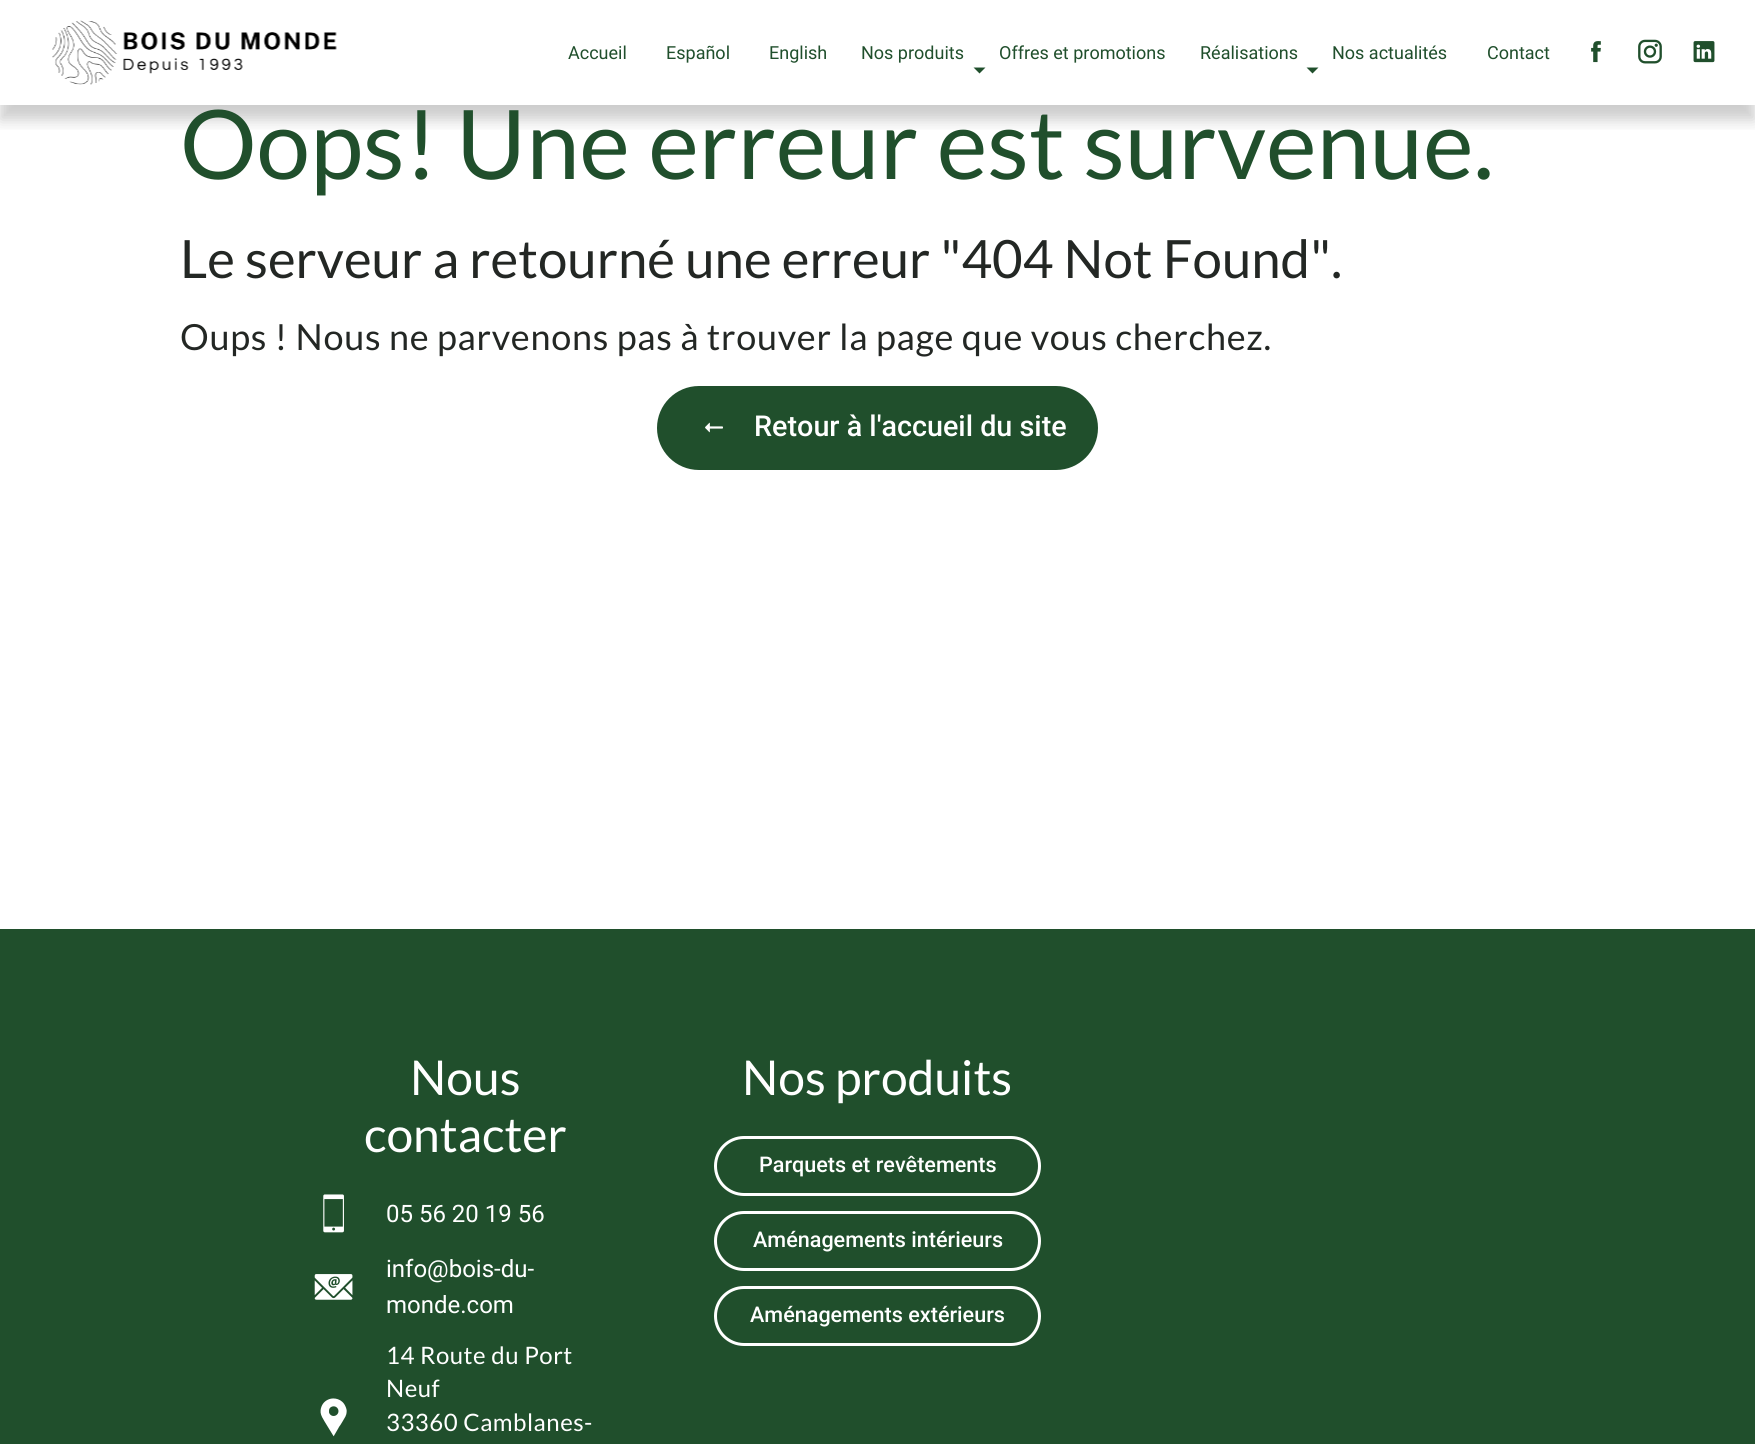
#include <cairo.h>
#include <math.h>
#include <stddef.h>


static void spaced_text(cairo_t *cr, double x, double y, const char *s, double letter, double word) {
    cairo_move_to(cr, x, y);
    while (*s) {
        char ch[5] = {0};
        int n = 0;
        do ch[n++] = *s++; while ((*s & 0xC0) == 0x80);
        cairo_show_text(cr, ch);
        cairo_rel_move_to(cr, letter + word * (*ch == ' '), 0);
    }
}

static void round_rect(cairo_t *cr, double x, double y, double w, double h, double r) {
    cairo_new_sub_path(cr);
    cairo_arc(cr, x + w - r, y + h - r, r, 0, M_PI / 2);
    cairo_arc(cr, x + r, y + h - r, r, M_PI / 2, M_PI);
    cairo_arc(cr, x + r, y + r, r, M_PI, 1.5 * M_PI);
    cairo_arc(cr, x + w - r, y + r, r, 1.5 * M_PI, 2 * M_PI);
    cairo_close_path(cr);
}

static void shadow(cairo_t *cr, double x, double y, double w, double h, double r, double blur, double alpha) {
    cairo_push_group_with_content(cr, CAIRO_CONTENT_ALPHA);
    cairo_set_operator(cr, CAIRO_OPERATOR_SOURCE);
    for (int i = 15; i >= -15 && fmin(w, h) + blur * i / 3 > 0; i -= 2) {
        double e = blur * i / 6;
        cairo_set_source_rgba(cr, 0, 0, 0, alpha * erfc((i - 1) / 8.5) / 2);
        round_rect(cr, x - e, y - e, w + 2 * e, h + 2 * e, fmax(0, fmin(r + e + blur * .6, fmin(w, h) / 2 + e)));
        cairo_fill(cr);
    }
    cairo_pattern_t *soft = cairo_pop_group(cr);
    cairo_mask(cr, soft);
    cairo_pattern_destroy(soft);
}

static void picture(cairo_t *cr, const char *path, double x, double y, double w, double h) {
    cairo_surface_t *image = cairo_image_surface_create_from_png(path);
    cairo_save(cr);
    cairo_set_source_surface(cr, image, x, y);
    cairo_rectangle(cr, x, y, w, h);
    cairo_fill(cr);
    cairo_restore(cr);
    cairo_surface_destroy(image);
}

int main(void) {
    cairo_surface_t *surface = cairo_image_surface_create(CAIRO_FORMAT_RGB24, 1755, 1444);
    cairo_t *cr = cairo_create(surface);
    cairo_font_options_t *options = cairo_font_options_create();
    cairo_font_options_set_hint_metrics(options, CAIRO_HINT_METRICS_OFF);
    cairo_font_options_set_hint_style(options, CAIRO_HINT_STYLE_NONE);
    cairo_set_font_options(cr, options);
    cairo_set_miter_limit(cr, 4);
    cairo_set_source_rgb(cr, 1, 1, 1);
    cairo_paint(cr);
    cairo_save(cr);
    cairo_rectangle(cr, 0, 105, 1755, 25);
    cairo_clip(cr);
    cairo_set_source_rgb(cr, 0, 0, 0);
    shadow(cr, 0, 15, 1755, 105, 0, 7.5, 0.2);
    cairo_restore(cr);
    picture(cr, "img1.png", 52, 20, 285, 65);
    cairo_select_font_face(cr, "Roboto", CAIRO_FONT_SLANT_NORMAL, CAIRO_FONT_WEIGHT_NORMAL);
    cairo_set_font_size(cr, 18);
    cairo_set_source_rgb(cr, 0.125, 0.31, 0.173);
    cairo_move_to(cr, 568, 59);
    cairo_show_text(cr, "Accueil");
    cairo_move_to(cr, 666, 59);
    cairo_show_text(cr, "Español");
    cairo_move_to(cr, 769, 59);
    cairo_show_text(cr, "English");
    cairo_move_to(cr, 861, 59);
    cairo_show_text(cr, "Nos produits");
    cairo_new_path(cr);
    cairo_move_to(cr, 973.5, 67.5);
    cairo_line_to(cr, 985.5, 67.5);
    cairo_line_to(cr, 979.5, 73.5);
    cairo_close_path(cr);
    cairo_fill(cr);
    cairo_move_to(cr, 999, 59);
    cairo_show_text(cr, "Offres et promotions");
    cairo_move_to(cr, 1200, 59);
    cairo_show_text(cr, "Réalisations");
    cairo_new_path(cr);
    cairo_move_to(cr, 1306.5, 67.5);
    cairo_line_to(cr, 1318.5, 67.5);
    cairo_line_to(cr, 1312.5, 73.5);
    cairo_close_path(cr);
    cairo_fill(cr);
    cairo_move_to(cr, 1332, 59);
    cairo_show_text(cr, "Nos actualités");
    cairo_move_to(cr, 1487, 59);
    cairo_show_text(cr, "Contact");
    picture(cr, "img2.png", 1591, 41, 10, 22);
    picture(cr, "img3.png", 1638, 39, 24, 25);
    picture(cr, "img4.png", 1693, 41, 22, 22);
    cairo_select_font_face(cr, "Lato", CAIRO_FONT_SLANT_NORMAL, CAIRO_FONT_WEIGHT_NORMAL);
    cairo_set_font_size(cr, 96);
    cairo_move_to(cr, 180, 179);
    cairo_show_text(cr, "Oops! Une erreur est survenue.");
    cairo_set_font_size(cr, 52.8);
    cairo_set_source_rgb(cr, 0.137, 0.153, 0.141);
    cairo_move_to(cr, 180, 278);
    cairo_show_text(cr, "Le serveur a retourné une erreur \"404 Not Found\".");
    cairo_set_font_size(cr, 36);
    spaced_text(cr, 180, 350, "Oups ! Nous ne parvenons pas à trouver la page que vous cherchez.", 0.72, 0);
    cairo_set_source_rgb(cr, 0.125, 0.31, 0.173);
    round_rect(cr, 658, 387, 439, 82, 41);
    cairo_fill_preserve(cr);
    cairo_stroke(cr);
    picture(cr, "img5.png", 705, 422, 18, 11);
    cairo_select_font_face(cr, "Roboto Medium", CAIRO_FONT_SLANT_NORMAL, CAIRO_FONT_WEIGHT_NORMAL);
    cairo_set_font_size(cr, 28.75);
    cairo_set_source_rgb(cr, 1, 1, 1);
    cairo_move_to(cr, 754, 436);
    cairo_show_text(cr, "Retour à l'accueil du site");
    cairo_set_source_rgb(cr, 0.125, 0.31, 0.173);
    cairo_rectangle(cr, 0, 929, 1755, 515);
    cairo_fill(cr);
    cairo_select_font_face(cr, "Lato", CAIRO_FONT_SLANT_NORMAL, CAIRO_FONT_WEIGHT_NORMAL);
    cairo_set_font_size(cr, 48);
    cairo_set_source_rgb(cr, 1, 1, 1);
    cairo_move_to(cr, 410, 1095);
    cairo_show_text(cr, "Nous");
    cairo_move_to(cr, 364, 1152);
    cairo_show_text(cr, "contacter");
    picture(cr, "img6.png", 323, 1194, 21, 39);
    cairo_select_font_face(cr, "Roboto", CAIRO_FONT_SLANT_NORMAL, CAIRO_FONT_WEIGHT_NORMAL);
    cairo_set_font_size(cr, 24);
    cairo_move_to(cr, 386, 1222);
    cairo_show_text(cr, "05 56 20 19 56");
    picture(cr, "img7.png", 314, 1274, 39, 26);
    cairo_move_to(cr, 386, 1277);
    cairo_show_text(cr, "info@bois-du-");
    cairo_move_to(cr, 386, 1313);
    cairo_show_text(cr, "monde.com");
    picture(cr, "img8.png", 320, 1398, 27, 39);
    cairo_select_font_face(cr, "Lato", CAIRO_FONT_SLANT_NORMAL, CAIRO_FONT_WEIGHT_NORMAL);
    spaced_text(cr, 386, 1364, "14 Route du Port", 0.5, 0);
    spaced_text(cr, 386, 1397, "Neuf", 0.5, 0);
    spaced_text(cr, 386, 1431, "33360 Camblanes-", 0.5, 0);
    cairo_set_font_size(cr, 48);
    cairo_move_to(cr, 742, 1095);
    cairo_show_text(cr, "Nos produits");
    round_rect(cr, 715.5, 1137.5, 324, 57, 28.5);
    cairo_set_line_width(cr, 3);
    cairo_stroke(cr);
    cairo_save(cr);
    round_rect(cr, 717, 1139, 321, 54, 27);
    cairo_clip(cr);
    cairo_set_source_rgba(cr, 0.235, 0.235, 0.235, 0.1);
    cairo_rectangle(cr, 717, 1156, 2, 20);
    cairo_fill(cr);
    cairo_restore(cr);
    cairo_select_font_face(cr, "Roboto Medium", CAIRO_FONT_SLANT_NORMAL, CAIRO_FONT_WEIGHT_NORMAL);
    cairo_set_font_size(cr, 21.6);
    cairo_move_to(cr, 759, 1172);
    cairo_show_text(cr, "Parquets et revêtements");
    round_rect(cr, 715.5, 1212.5, 324, 57, 28.5);
    cairo_stroke(cr);
    cairo_save(cr);
    round_rect(cr, 717, 1214, 321, 54, 27);
    cairo_clip(cr);
    cairo_set_source_rgba(cr, 0.235, 0.235, 0.235, 0.1);
    cairo_rectangle(cr, 717, 1231, 2, 20);
    cairo_fill(cr);
    cairo_restore(cr);
    cairo_move_to(cr, 753, 1247);
    cairo_show_text(cr, "Aménagements intérieurs");
    round_rect(cr, 715.5, 1287.5, 324, 57, 28.5);
    cairo_stroke(cr);
    cairo_save(cr);
    round_rect(cr, 717, 1289, 321, 54, 27);
    cairo_clip(cr);
    cairo_set_source_rgba(cr, 0.235, 0.235, 0.235, 0.1);
    cairo_rectangle(cr, 717, 1306, 2, 20);
    cairo_fill(cr);
    cairo_restore(cr);
    cairo_move_to(cr, 750, 1322);
    cairo_show_text(cr, "Aménagements extérieurs");
    cairo_surface_write_to_png(surface, "page.png");
    cairo_font_options_destroy(options);
    cairo_destroy(cr);
    cairo_surface_destroy(surface);
    return 0;
}
